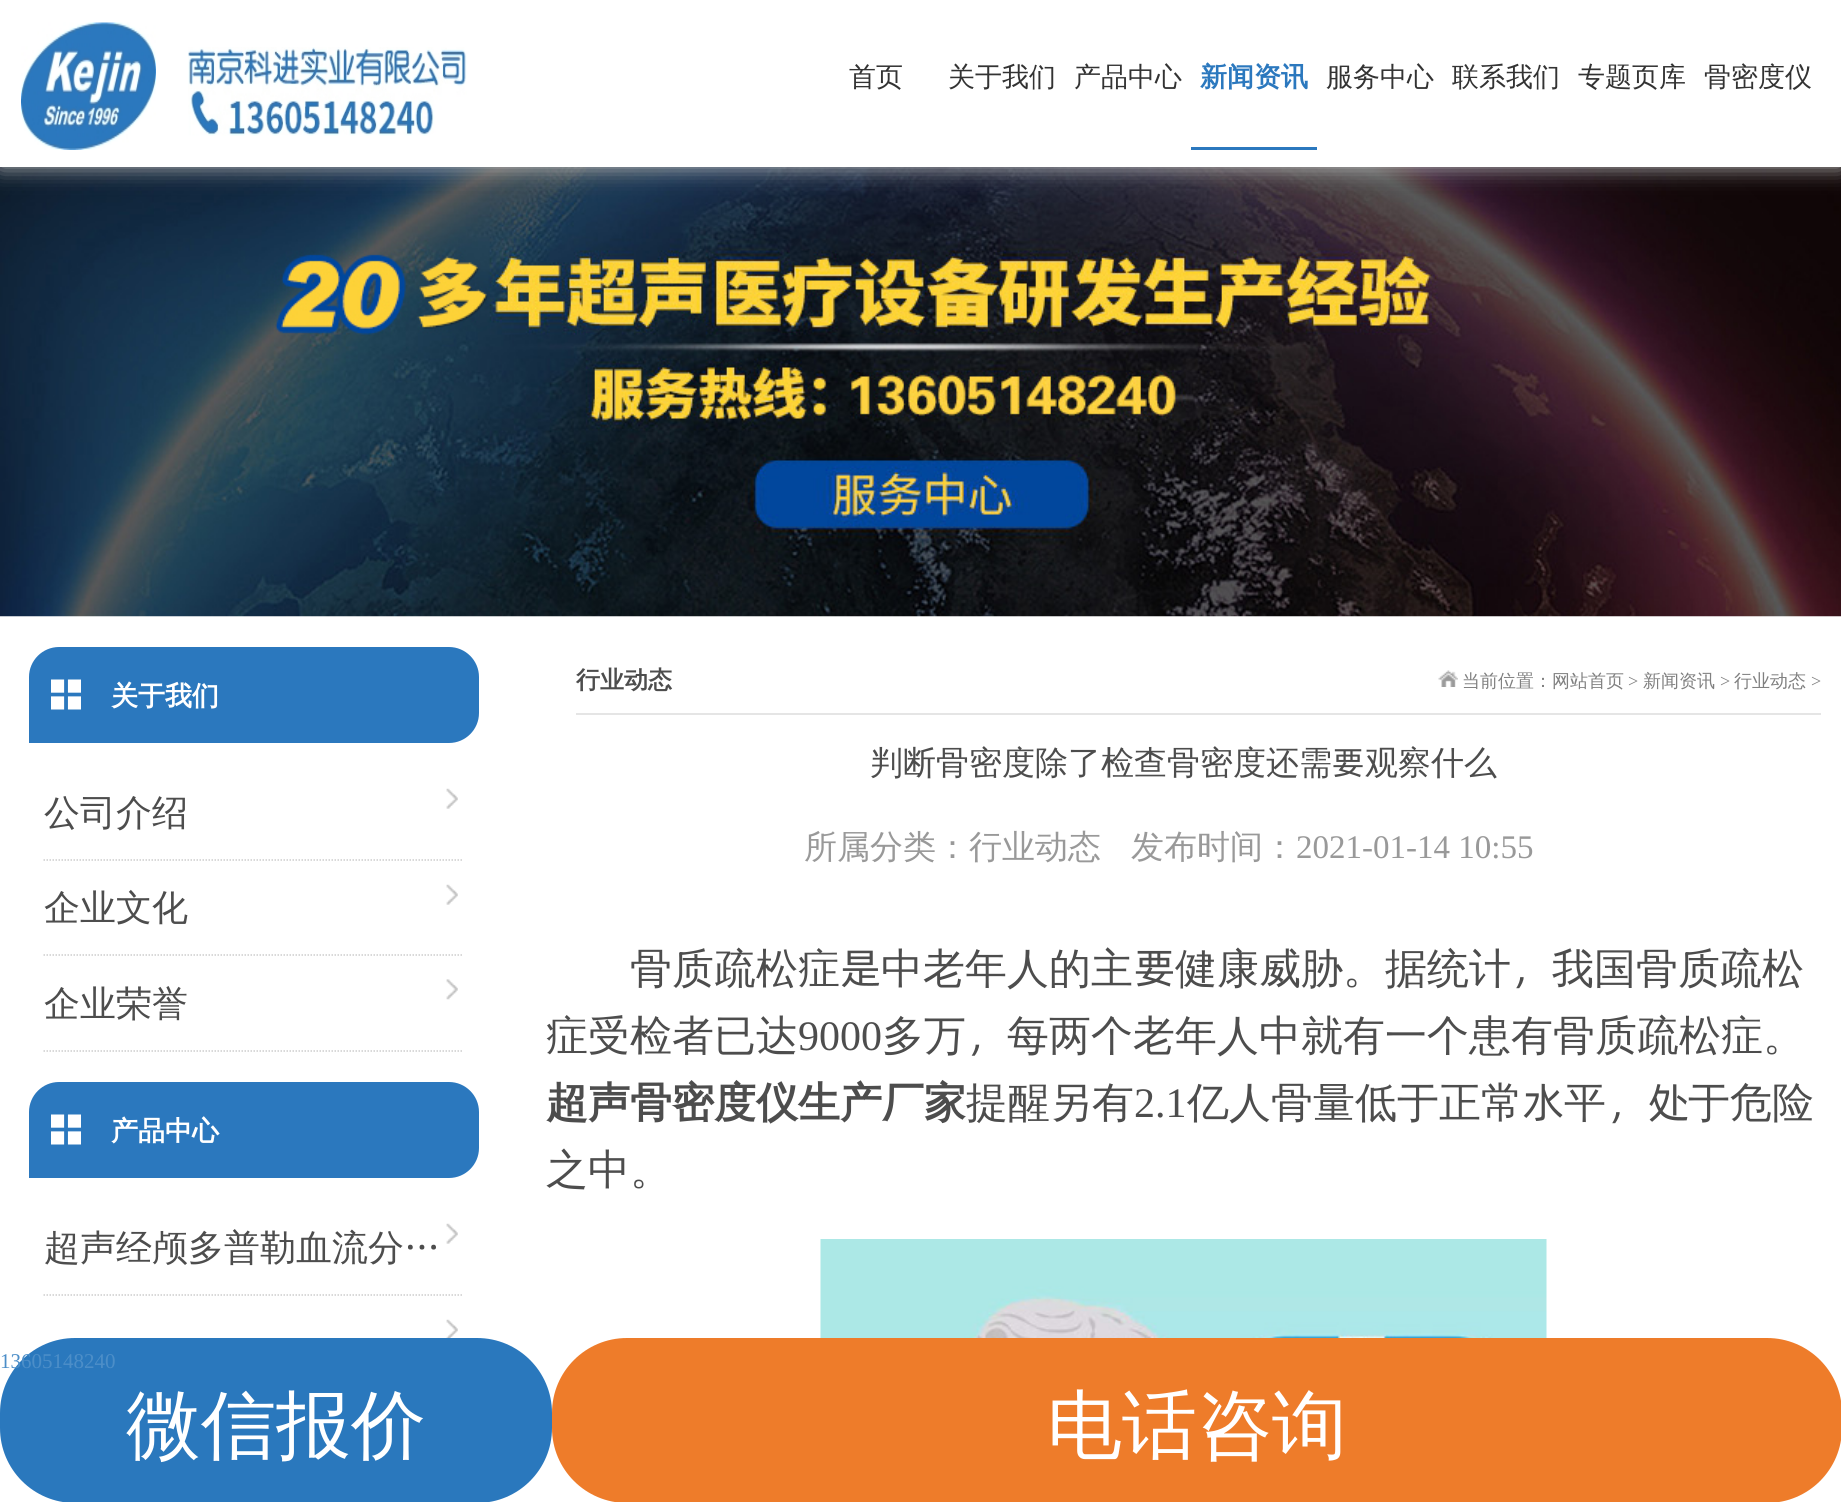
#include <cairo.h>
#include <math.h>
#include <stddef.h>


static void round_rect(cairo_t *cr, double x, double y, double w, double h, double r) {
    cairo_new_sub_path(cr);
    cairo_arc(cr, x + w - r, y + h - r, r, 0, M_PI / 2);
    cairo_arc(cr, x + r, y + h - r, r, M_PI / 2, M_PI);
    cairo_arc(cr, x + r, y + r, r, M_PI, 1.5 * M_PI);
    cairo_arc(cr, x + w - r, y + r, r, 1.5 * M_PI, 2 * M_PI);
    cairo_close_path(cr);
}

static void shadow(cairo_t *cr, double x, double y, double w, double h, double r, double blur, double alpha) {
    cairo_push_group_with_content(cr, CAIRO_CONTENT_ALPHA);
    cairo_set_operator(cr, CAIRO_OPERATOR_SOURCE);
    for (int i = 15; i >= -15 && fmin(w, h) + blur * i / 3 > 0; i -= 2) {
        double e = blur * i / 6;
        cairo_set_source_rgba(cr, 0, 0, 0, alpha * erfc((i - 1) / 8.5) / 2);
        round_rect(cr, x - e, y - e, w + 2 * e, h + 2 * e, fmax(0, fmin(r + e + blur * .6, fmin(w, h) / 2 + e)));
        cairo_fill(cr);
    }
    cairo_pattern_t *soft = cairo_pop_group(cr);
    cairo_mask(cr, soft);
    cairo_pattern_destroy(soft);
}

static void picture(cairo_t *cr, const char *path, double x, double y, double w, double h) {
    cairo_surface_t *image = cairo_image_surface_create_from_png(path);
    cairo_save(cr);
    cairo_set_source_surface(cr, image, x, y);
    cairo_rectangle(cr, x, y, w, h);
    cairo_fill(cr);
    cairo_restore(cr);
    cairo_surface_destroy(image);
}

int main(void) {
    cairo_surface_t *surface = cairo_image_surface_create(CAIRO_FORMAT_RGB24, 1841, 1502);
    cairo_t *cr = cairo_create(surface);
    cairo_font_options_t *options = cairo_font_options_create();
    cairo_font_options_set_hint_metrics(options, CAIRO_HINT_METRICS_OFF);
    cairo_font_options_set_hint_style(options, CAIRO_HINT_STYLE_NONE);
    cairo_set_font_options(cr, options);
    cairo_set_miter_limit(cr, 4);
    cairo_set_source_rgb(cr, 1, 1, 1);
    cairo_paint(cr);
    picture(cr, "img3.png", 0, 167, 1841, 450);
    cairo_set_source_rgb(cr, 0.733, 0.733, 0.733);
    shadow(cr, 0, 0, 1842, 167, 0, 11, 1);
    cairo_set_source_rgb(cr, 1, 1, 1);
    cairo_rectangle(cr, 0, 0, 1841, 167);
    cairo_fill(cr);
    picture(cr, "img1.png", 21, 22, 135, 128);
    picture(cr, "img2.png", 188, 47, 279, 89);
    cairo_select_font_face(cr, "WenQuanYi Zen Hei Medium", CAIRO_FONT_SLANT_NORMAL, CAIRO_FONT_WEIGHT_NORMAL);
    cairo_set_font_size(cr, 27);
    cairo_set_source_rgb(cr, 0.2, 0.2, 0.2);
    cairo_move_to(cr, 849, 86);
    cairo_show_text(cr, "首页");
    cairo_move_to(cr, 948, 86);
    cairo_show_text(cr, "关于我们");
    cairo_move_to(cr, 1074, 86);
    cairo_show_text(cr, "产品中心");
    cairo_select_font_face(cr, "WenQuanYi Zen Hei", CAIRO_FONT_SLANT_NORMAL, CAIRO_FONT_WEIGHT_BOLD);
    cairo_set_source_rgb(cr, 0.169, 0.471, 0.745);
    cairo_move_to(cr, 1200, 86);
    cairo_show_text(cr, "新闻资讯");
    cairo_rectangle(cr, 1191, 147, 126, 3);
    cairo_fill(cr);
    cairo_select_font_face(cr, "WenQuanYi Zen Hei Medium", CAIRO_FONT_SLANT_NORMAL, CAIRO_FONT_WEIGHT_NORMAL);
    cairo_set_source_rgb(cr, 0.2, 0.2, 0.2);
    cairo_move_to(cr, 1326, 86);
    cairo_show_text(cr, "服务中心");
    cairo_move_to(cr, 1452, 86);
    cairo_show_text(cr, "联系我们");
    cairo_move_to(cr, 1578, 86);
    cairo_show_text(cr, "专题页库");
    cairo_move_to(cr, 1704, 86);
    cairo_show_text(cr, "骨密度仪");
    cairo_set_source_rgb(cr, 0.169, 0.471, 0.745);
    cairo_new_path(cr);
    cairo_move_to(cr, 59, 647);
    cairo_line_to(cr, 449, 647);
    cairo_curve_to(cr, 465.5, 647, 479, 660.5, 479, 677);
    cairo_line_to(cr, 479, 713);
    cairo_curve_to(cr, 479, 729.5, 465.5, 743, 449, 743);
    cairo_line_to(cr, 29, 743);
    cairo_line_to(cr, 29, 677);
    cairo_curve_to(cr, 29, 660.5, 42.5, 647, 59, 647);
    cairo_close_path(cr);
    cairo_fill(cr);
    picture(cr, "img4.png", 51, 679, 30, 31);
    cairo_select_font_face(cr, "WenQuanYi Zen Hei", CAIRO_FONT_SLANT_NORMAL, CAIRO_FONT_WEIGHT_BOLD);
    cairo_set_source_rgb(cr, 1, 1, 1);
    cairo_move_to(cr, 111, 705);
    cairo_show_text(cr, "关于我们");
    cairo_new_path(cr);
    cairo_move_to(cr, 43.5, 860);
    cairo_line_to(cr, 463.5, 860);
    cairo_set_source_rgb(cr, 0.804, 0.804, 0.804);
    cairo_set_line_width(cr, 1.5);
    cairo_set_dash(cr, (double[]){1.5, 1.5}, 2, 0);
    cairo_stroke(cr);
    cairo_select_font_face(cr, "WenQuanYi Zen Hei Medium", CAIRO_FONT_SLANT_NORMAL, CAIRO_FONT_WEIGHT_NORMAL);
    cairo_set_font_size(cr, 36);
    cairo_set_source_rgb(cr, 0.302, 0.302, 0.302);
    cairo_move_to(cr, 44, 825);
    cairo_show_text(cr, "公司介绍");
    picture(cr, "img5.png", 446, 788, 12, 21);
    cairo_new_path(cr);
    cairo_move_to(cr, 43.5, 955);
    cairo_line_to(cr, 463.5, 955);
    cairo_set_source_rgb(cr, 0.804, 0.804, 0.804);
    cairo_stroke(cr);
    cairo_set_source_rgb(cr, 0.302, 0.302, 0.302);
    cairo_move_to(cr, 44, 920);
    cairo_show_text(cr, "企业文化");
    picture(cr, "img5.png", 446, 884, 12, 21);
    cairo_new_path(cr);
    cairo_move_to(cr, 43.5, 1051);
    cairo_line_to(cr, 463.5, 1051);
    cairo_set_source_rgb(cr, 0.804, 0.804, 0.804);
    cairo_stroke(cr);
    cairo_set_source_rgb(cr, 0.302, 0.302, 0.302);
    cairo_move_to(cr, 44, 1016);
    cairo_show_text(cr, "企业荣誉");
    picture(cr, "img6.png", 446, 979, 12, 21);
    cairo_set_source_rgb(cr, 0.169, 0.471, 0.745);
    cairo_new_path(cr);
    cairo_move_to(cr, 59, 1082);
    cairo_line_to(cr, 449, 1082);
    cairo_curve_to(cr, 465.5, 1082, 479, 1095.5, 479, 1112);
    cairo_line_to(cr, 479, 1148);
    cairo_curve_to(cr, 479, 1164.5, 465.5, 1178, 449, 1178);
    cairo_line_to(cr, 29, 1178);
    cairo_line_to(cr, 29, 1112);
    cairo_curve_to(cr, 29, 1095.5, 42.5, 1082, 59, 1082);
    cairo_close_path(cr);
    cairo_fill(cr);
    picture(cr, "img4.png", 51, 1114, 30, 31);
    cairo_select_font_face(cr, "WenQuanYi Zen Hei", CAIRO_FONT_SLANT_NORMAL, CAIRO_FONT_WEIGHT_BOLD);
    cairo_set_font_size(cr, 27);
    cairo_set_source_rgb(cr, 1, 1, 1);
    cairo_move_to(cr, 111, 1140);
    cairo_show_text(cr, "产品中心");
    cairo_new_path(cr);
    cairo_move_to(cr, 43.5, 1295);
    cairo_line_to(cr, 463.5, 1295);
    cairo_set_source_rgb(cr, 0.804, 0.804, 0.804);
    cairo_stroke(cr);
    cairo_select_font_face(cr, "WenQuanYi Zen Hei Medium", CAIRO_FONT_SLANT_NORMAL, CAIRO_FONT_WEIGHT_NORMAL);
    cairo_set_font_size(cr, 36);
    cairo_set_source_rgb(cr, 0.302, 0.302, 0.302);
    cairo_move_to(cr, 44, 1260);
    cairo_show_text(cr, "超声经颅多普勒血流分…");
    picture(cr, "img5.png", 446, 1223, 12, 21);
    picture(cr, "img7.png", 446, 1319, 12, 19);
    cairo_set_source_rgb(cr, 0.898, 0.898, 0.898);
    cairo_rectangle(cr, 576, 713, 1245, 2);
    cairo_fill(cr);
    cairo_select_font_face(cr, "WenQuanYi Zen Hei", CAIRO_FONT_SLANT_NORMAL, CAIRO_FONT_WEIGHT_BOLD);
    cairo_set_font_size(cr, 24);
    cairo_set_source_rgb(cr, 0.302, 0.302, 0.302);
    cairo_move_to(cr, 576, 688);
    cairo_show_text(cr, "行业动态");
    picture(cr, "img8.png", 1438, 670, 20, 17);
    cairo_select_font_face(cr, "WenQuanYi Zen Hei Medium", CAIRO_FONT_SLANT_NORMAL, CAIRO_FONT_WEIGHT_NORMAL);
    cairo_set_font_size(cr, 18);
    cairo_set_source_rgb(cr, 0.502, 0.502, 0.502);
    cairo_move_to(cr, 1462, 687);
    cairo_show_text(cr, "当前位置：网站首页");
    cairo_select_font_face(cr, "Liberation Serif", CAIRO_FONT_SLANT_NORMAL, CAIRO_FONT_WEIGHT_NORMAL);
    cairo_move_to(cr, 1628, 687);
    cairo_show_text(cr, ">");
    cairo_select_font_face(cr, "WenQuanYi Zen Hei Medium", CAIRO_FONT_SLANT_NORMAL, CAIRO_FONT_WEIGHT_NORMAL);
    cairo_move_to(cr, 1643, 687);
    cairo_show_text(cr, "新闻资讯");
    cairo_select_font_face(cr, "Liberation Serif", CAIRO_FONT_SLANT_NORMAL, CAIRO_FONT_WEIGHT_NORMAL);
    cairo_move_to(cr, 1720, 687);
    cairo_show_text(cr, ">");
    cairo_select_font_face(cr, "WenQuanYi Zen Hei Medium", CAIRO_FONT_SLANT_NORMAL, CAIRO_FONT_WEIGHT_NORMAL);
    cairo_move_to(cr, 1734, 687);
    cairo_show_text(cr, "行业动态");
    cairo_select_font_face(cr, "Liberation Serif", CAIRO_FONT_SLANT_NORMAL, CAIRO_FONT_WEIGHT_NORMAL);
    cairo_move_to(cr, 1811, 687);
    cairo_show_text(cr, ">");
    cairo_select_font_face(cr, "WenQuanYi Zen Hei Medium", CAIRO_FONT_SLANT_NORMAL, CAIRO_FONT_WEIGHT_NORMAL);
    cairo_set_font_size(cr, 33);
    cairo_set_source_rgb(cr, 0.302, 0.302, 0.302);
    cairo_move_to(cr, 870, 774);
    cairo_show_text(cr, "判断骨密度除了检查骨密度还需");
    picture(cr, "img9.png", 1333, 749, 30, 29);
    cairo_move_to(cr, 1365, 774);
    cairo_show_text(cr, "观察什么");
    cairo_set_source_rgb(cr, 0.6, 0.6, 0.6);
    cairo_move_to(cr, 804, 858);
    cairo_show_text(cr, "所属分类：行业动态");
    cairo_move_to(cr, 1131, 858);
    cairo_show_text(cr, "发布时间：");
    cairo_select_font_face(cr, "Liberation Serif", CAIRO_FONT_SLANT_NORMAL, CAIRO_FONT_WEIGHT_NORMAL);
    cairo_move_to(cr, 1296, 858);
    cairo_show_text(cr, "2021-01-14 10:55");
    cairo_select_font_face(cr, "WenQuanYi Zen Hei Medium", CAIRO_FONT_SLANT_NORMAL, CAIRO_FONT_WEIGHT_NORMAL);
    cairo_set_font_size(cr, 42);
    cairo_set_source_rgb(cr, 0.302, 0.302, 0.302);
    cairo_move_to(cr, 630, 983);
    cairo_show_text(cr, "骨质疏松症");
    picture(cr, "img10.png", 841, 950, 39, 38);
    cairo_move_to(cr, 881, 983);
    cairo_show_text(cr, "中老年人的主");
    picture(cr, "img11.png", 1135, 950, 38, 37);
    cairo_move_to(cr, 1175, 983);
    cairo_show_text(cr, "健康威胁。据统计");
    picture(cr, "img12.png", 1516, 977, 8, 12);
    cairo_move_to(cr, 1552, 983);
    cairo_show_text(cr, "我国骨质疏松");
    cairo_move_to(cr, 546, 1050);
    cairo_show_text(cr, "症受检者已达");
    cairo_select_font_face(cr, "Liberation Serif", CAIRO_FONT_SLANT_NORMAL, CAIRO_FONT_WEIGHT_NORMAL);
    cairo_move_to(cr, 798, 1050);
    cairo_show_text(cr, "9000");
    cairo_select_font_face(cr, "WenQuanYi Zen Hei Medium", CAIRO_FONT_SLANT_NORMAL, CAIRO_FONT_WEIGHT_NORMAL);
    cairo_move_to(cr, 882, 1050);
    cairo_show_text(cr, "多万");
    picture(cr, "img13.png", 971, 1044, 9, 12);
    cairo_move_to(cr, 1007, 1050);
    cairo_show_text(cr, "每两个老年人中就有一个患有骨质疏松症。");
    cairo_select_font_face(cr, "WenQuanYi Zen Hei", CAIRO_FONT_SLANT_NORMAL, CAIRO_FONT_WEIGHT_BOLD);
    cairo_move_to(cr, 546, 1117);
    cairo_show_text(cr, "超声骨密度仪生产厂家");
    cairo_select_font_face(cr, "WenQuanYi Zen Hei Medium", CAIRO_FONT_SLANT_NORMAL, CAIRO_FONT_WEIGHT_NORMAL);
    cairo_move_to(cr, 966, 1117);
    cairo_show_text(cr, "提醒另有");
    cairo_select_font_face(cr, "Liberation Serif", CAIRO_FONT_SLANT_NORMAL, CAIRO_FONT_WEIGHT_NORMAL);
    cairo_move_to(cr, 1134, 1117);
    cairo_show_text(cr, "2.1");
    cairo_select_font_face(cr, "WenQuanYi Zen Hei Medium", CAIRO_FONT_SLANT_NORMAL, CAIRO_FONT_WEIGHT_NORMAL);
    cairo_move_to(cr, 1187, 1117);
    cairo_show_text(cr, "亿人骨量低于正常");
    picture(cr, "img14.png", 1523, 1083, 40, 38);
    cairo_move_to(cr, 1564, 1117);
    cairo_show_text(cr, "平");
    picture(cr, "img15.png", 1612, 1084, 76, 40);
    cairo_move_to(cr, 1688, 1117);
    cairo_show_text(cr, "于危险");
    cairo_move_to(cr, 546, 1184);
    cairo_show_text(cr, "之中。");
    picture(cr, "img16.png", 820, 1239, 727, 99);
    cairo_set_source_rgb(cr, 0.165, 0.471, 0.741);
    round_rect(cr, 0, 1338, 552, 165, 75);
    cairo_fill(cr);
    cairo_select_font_face(cr, "Liberation Serif", CAIRO_FONT_SLANT_NORMAL, CAIRO_FONT_WEIGHT_NORMAL);
    cairo_set_font_size(cr, 21);
    cairo_set_source_rgb(cr, 0.298, 0.557, 0.784);
    cairo_move_to(cr, 0, 1368);
    cairo_show_text(cr, "13605148240");
    cairo_select_font_face(cr, "WenQuanYi Zen Hei Medium", CAIRO_FONT_SLANT_NORMAL, CAIRO_FONT_WEIGHT_NORMAL);
    cairo_set_font_size(cr, 75);
    cairo_set_source_rgb(cr, 1, 1, 1);
    cairo_move_to(cr, 126, 1451);
    cairo_show_text(cr, "微信报价");
    cairo_set_source_rgb(cr, 0.933, 0.486, 0.165);
    round_rect(cr, 552, 1338, 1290, 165, 75);
    cairo_fill(cr);
    cairo_set_source_rgb(cr, 1, 1, 1);
    cairo_move_to(cr, 1047, 1451);
    cairo_show_text(cr, "电话咨询");
    cairo_surface_write_to_png(surface, "page.png");
    cairo_font_options_destroy(options);
    cairo_destroy(cr);
    cairo_surface_destroy(surface);
    return 0;
}
